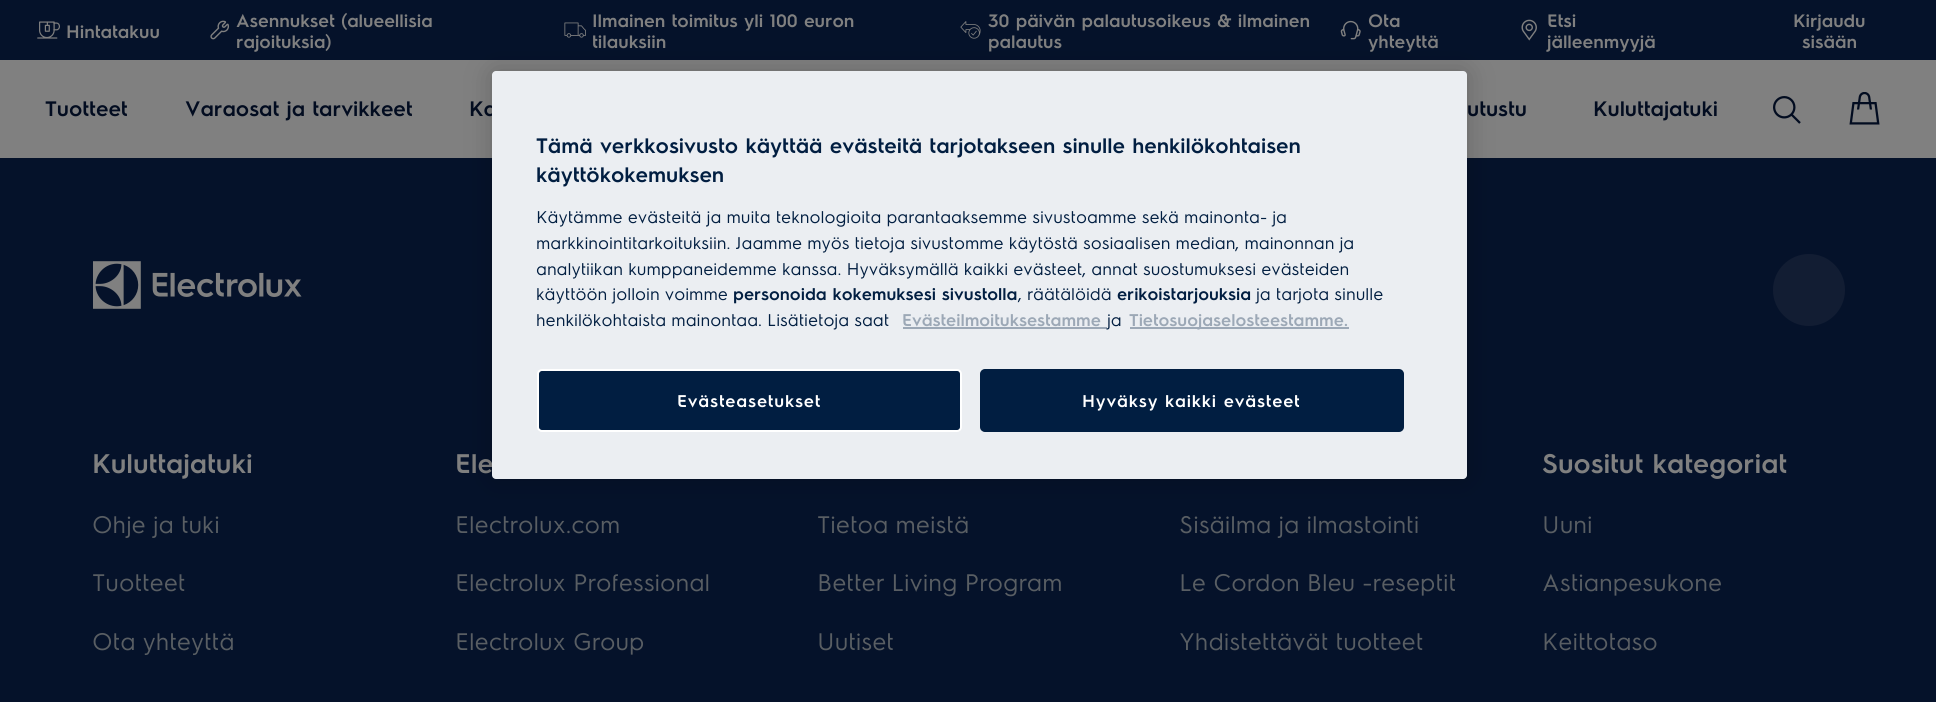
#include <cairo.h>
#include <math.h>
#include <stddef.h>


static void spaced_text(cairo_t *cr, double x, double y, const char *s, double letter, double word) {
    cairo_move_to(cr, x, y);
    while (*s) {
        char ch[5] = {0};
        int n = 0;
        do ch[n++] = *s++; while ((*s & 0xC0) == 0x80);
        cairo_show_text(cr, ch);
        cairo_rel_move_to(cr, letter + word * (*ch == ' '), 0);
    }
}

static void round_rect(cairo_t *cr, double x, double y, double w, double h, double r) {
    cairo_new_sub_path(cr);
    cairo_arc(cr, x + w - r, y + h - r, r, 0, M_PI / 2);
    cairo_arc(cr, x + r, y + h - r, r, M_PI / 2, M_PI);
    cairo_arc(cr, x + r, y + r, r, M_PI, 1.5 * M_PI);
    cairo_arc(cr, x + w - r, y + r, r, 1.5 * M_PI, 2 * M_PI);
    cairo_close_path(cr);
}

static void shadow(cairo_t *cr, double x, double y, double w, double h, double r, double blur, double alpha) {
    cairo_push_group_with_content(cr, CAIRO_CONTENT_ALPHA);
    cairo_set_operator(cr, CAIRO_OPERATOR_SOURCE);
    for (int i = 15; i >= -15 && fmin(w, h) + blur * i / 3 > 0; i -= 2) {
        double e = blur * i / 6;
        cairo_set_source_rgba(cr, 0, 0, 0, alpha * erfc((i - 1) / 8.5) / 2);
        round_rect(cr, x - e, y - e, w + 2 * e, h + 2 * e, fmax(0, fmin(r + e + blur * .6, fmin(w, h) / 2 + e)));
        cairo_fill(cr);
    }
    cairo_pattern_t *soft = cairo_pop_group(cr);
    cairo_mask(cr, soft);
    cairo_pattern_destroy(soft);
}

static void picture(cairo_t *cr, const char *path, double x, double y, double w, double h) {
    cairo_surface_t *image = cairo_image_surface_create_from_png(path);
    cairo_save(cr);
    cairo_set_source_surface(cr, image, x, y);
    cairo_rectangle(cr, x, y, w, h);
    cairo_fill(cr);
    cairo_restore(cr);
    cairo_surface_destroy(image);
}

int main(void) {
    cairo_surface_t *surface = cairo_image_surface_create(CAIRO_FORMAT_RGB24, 1936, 702);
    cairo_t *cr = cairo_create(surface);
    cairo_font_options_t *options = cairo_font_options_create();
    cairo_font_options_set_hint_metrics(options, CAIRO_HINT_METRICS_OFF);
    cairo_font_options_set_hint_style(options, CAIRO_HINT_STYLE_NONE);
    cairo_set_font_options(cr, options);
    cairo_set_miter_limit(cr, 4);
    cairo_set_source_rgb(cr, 0.502, 0.502, 0.502);
    cairo_paint(cr);
    cairo_set_source_rgb(cr, 0.02, 0.071, 0.165);
    cairo_rectangle(cr, 0, 0, 1936, 60);
    cairo_fill(cr);
    picture(cr, "img1.png", 37, 21, 23, 18);
    cairo_select_font_face(cr, "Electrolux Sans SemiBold", CAIRO_FONT_SLANT_NORMAL, CAIRO_FONT_WEIGHT_NORMAL);
    cairo_set_font_size(cr, 18);
    cairo_set_source_rgb(cr, 0.502, 0.502, 0.502);
    cairo_move_to(cr, 66, 38);
    cairo_show_text(cr, "Hintatakuu");
    picture(cr, "img2.png", 210, 20, 20, 20);
    cairo_move_to(cr, 236, 27);
    cairo_show_text(cr, "Asennukset (alueellisia");
    cairo_move_to(cr, 236, 48);
    cairo_show_text(cr, "rajoituksia)");
    picture(cr, "img3.png", 564, 22, 22, 16);
    cairo_move_to(cr, 592, 27);
    cairo_show_text(cr, "Ilmainen toimitus yli 100 euron");
    cairo_move_to(cr, 592, 48);
    cairo_show_text(cr, "tilauksiin");
    picture(cr, "img4.png", 960, 21, 21, 18);
    cairo_move_to(cr, 988, 27);
    cairo_show_text(cr, "30 päivän palautusoikeus & ilmainen");
    cairo_move_to(cr, 988, 48);
    cairo_show_text(cr, "palautus");
    picture(cr, "img5.png", 1340, 20, 21, 20);
    cairo_move_to(cr, 1368, 27);
    cairo_show_text(cr, "Ota");
    cairo_move_to(cr, 1368, 48);
    cairo_show_text(cr, "yhteyttä");
    picture(cr, "img6.png", 1521, 19, 16, 22);
    cairo_move_to(cr, 1547, 27);
    cairo_show_text(cr, "Etsi");
    cairo_move_to(cr, 1547, 48);
    cairo_show_text(cr, "jälleenmyyjä");
    cairo_move_to(cr, 1793, 27);
    cairo_show_text(cr, "Kirjaudu");
    cairo_move_to(cr, 1802, 48);
    cairo_show_text(cr, "sisään");
    cairo_set_font_size(cr, 21);
    cairo_set_source_rgb(cr, 0.008, 0.047, 0.125);
    cairo_move_to(cr, 45, 116);
    cairo_show_text(cr, "Tuotteet");
    cairo_move_to(cr, 185, 116);
    cairo_show_text(cr, "Varaosat ja tarvikkeet");
    cairo_move_to(cr, 469, 116);
    cairo_show_text(cr, "Ka");
    cairo_move_to(cr, 1467, 116);
    cairo_show_text(cr, "utustu");
    cairo_move_to(cr, 1593, 116);
    cairo_show_text(cr, "Kuluttajatuki");
    picture(cr, "img7.png", 1773, 96, 28, 28);
    picture(cr, "img8.png", 1849, 92, 31, 33);
    cairo_set_source_rgb(cr, 0.02, 0.071, 0.165);
    cairo_rectangle(cr, 0, 158, 1936, 544);
    cairo_fill(cr);
    picture(cr, "img9.png", 93, 261, 209, 48);
    cairo_set_source_rgb(cr, 0.071, 0.114, 0.2);
    cairo_arc(cr, 1809, 290, 36, 0, 2 * M_PI);
    cairo_fill(cr);
    cairo_set_font_size(cr, 27);
    cairo_set_source_rgb(cr, 0.502, 0.502, 0.502);
    cairo_move_to(cr, 92, 473);
    cairo_show_text(cr, "Kuluttajatuki");
    cairo_select_font_face(cr, "Electrolux Sans", CAIRO_FONT_SLANT_NORMAL, CAIRO_FONT_WEIGHT_NORMAL);
    cairo_set_font_size(cr, 24);
    cairo_set_source_rgb(cr, 0.349, 0.369, 0.388);
    cairo_move_to(cr, 92, 533);
    cairo_show_text(cr, "Ohje ja tuki");
    cairo_move_to(cr, 92, 591);
    cairo_show_text(cr, "Tuotteet");
    cairo_move_to(cr, 92, 650);
    cairo_show_text(cr, "Ota yhteyttä");
    cairo_select_font_face(cr, "Electrolux Sans SemiBold", CAIRO_FONT_SLANT_NORMAL, CAIRO_FONT_WEIGHT_NORMAL);
    cairo_set_font_size(cr, 27);
    cairo_set_source_rgb(cr, 0.502, 0.502, 0.502);
    cairo_move_to(cr, 455, 473);
    cairo_show_text(cr, "Ele");
    cairo_select_font_face(cr, "Electrolux Sans", CAIRO_FONT_SLANT_NORMAL, CAIRO_FONT_WEIGHT_NORMAL);
    cairo_set_font_size(cr, 24);
    cairo_set_source_rgb(cr, 0.349, 0.369, 0.388);
    cairo_move_to(cr, 455, 533);
    cairo_show_text(cr, "Electrolux.com");
    cairo_move_to(cr, 455, 591);
    cairo_show_text(cr, "Electrolux Professional");
    cairo_move_to(cr, 455, 650);
    cairo_show_text(cr, "Electrolux Group");
    cairo_move_to(cr, 817, 533);
    cairo_show_text(cr, "Tietoa meistä");
    cairo_move_to(cr, 817, 591);
    cairo_show_text(cr, "Better Living Program");
    cairo_move_to(cr, 817, 650);
    cairo_show_text(cr, "Uutiset");
    cairo_move_to(cr, 1179, 533);
    cairo_show_text(cr, "Sisäilma ja ilmastointi");
    cairo_move_to(cr, 1179, 591);
    cairo_show_text(cr, "Le Cordon Bleu -reseptit");
    cairo_move_to(cr, 1179, 650);
    cairo_show_text(cr, "Yhdistettävät tuotteet");
    cairo_select_font_face(cr, "Electrolux Sans SemiBold", CAIRO_FONT_SLANT_NORMAL, CAIRO_FONT_WEIGHT_NORMAL);
    cairo_set_font_size(cr, 27);
    cairo_set_source_rgb(cr, 0.502, 0.502, 0.502);
    cairo_move_to(cr, 1542, 473);
    cairo_show_text(cr, "Suositut kategoriat");
    cairo_select_font_face(cr, "Electrolux Sans", CAIRO_FONT_SLANT_NORMAL, CAIRO_FONT_WEIGHT_NORMAL);
    cairo_set_font_size(cr, 24);
    cairo_set_source_rgb(cr, 0.349, 0.369, 0.388);
    cairo_move_to(cr, 1542, 533);
    cairo_show_text(cr, "Uuni");
    cairo_move_to(cr, 1542, 591);
    cairo_show_text(cr, "Astianpesukone");
    cairo_move_to(cr, 1542, 650);
    cairo_show_text(cr, "Keittotaso");
    cairo_set_source_rgb(cr, 0, 0, 0);
    shadow(cr, 492, 71, 975, 408, 4, 13.5, 0.2);
    cairo_set_source_rgb(cr, 0.918, 0.933, 0.949);
    round_rect(cr, 492, 71, 975, 408, 4);
    cairo_fill(cr);
    cairo_select_font_face(cr, "Electrolux Sans SemiBold", CAIRO_FONT_SLANT_NORMAL, CAIRO_FONT_WEIGHT_NORMAL);
    cairo_set_font_size(cr, 21);
    cairo_set_source_rgb(cr, 0.004, 0.118, 0.255);
    cairo_move_to(cr, 536, 153);
    cairo_show_text(cr, "Tämä verkkosivusto käyttää evästeitä tarjotakseen sinulle henkilökohtaisen");
    cairo_move_to(cr, 536, 182);
    cairo_show_text(cr, "käyttökokemuksen");
    cairo_select_font_face(cr, "Electrolux Sans", CAIRO_FONT_SLANT_NORMAL, CAIRO_FONT_WEIGHT_NORMAL);
    cairo_set_font_size(cr, 17.05);
    cairo_move_to(cr, 536, 223);
    cairo_show_text(cr, "Käytämme evästeitä ja muita teknologioita parantaaksemme sivustoamme sekä mainonta- ja");
    cairo_move_to(cr, 536, 249);
    cairo_show_text(cr, "markkinointitarkoituksiin. Jaamme myös tietoja sivustomme käytöstä sosiaalisen median, mainonnan ja");
    cairo_move_to(cr, 536, 275);
    cairo_show_text(cr, "analytiikan kumppaneidemme kanssa. Hyväksymällä kaikki evästeet, annat suostumuksesi evästeiden");
    cairo_move_to(cr, 536, 300);
    cairo_show_text(cr, "käyttöön jolloin voimme");
    cairo_select_font_face(cr, "Electrolux Sans SemiBold", CAIRO_FONT_SLANT_NORMAL, CAIRO_FONT_WEIGHT_NORMAL);
    cairo_move_to(cr, 733, 300);
    cairo_show_text(cr, "personoida kokemuksesi sivustolla");
    cairo_select_font_face(cr, "Electrolux Sans", CAIRO_FONT_SLANT_NORMAL, CAIRO_FONT_WEIGHT_NORMAL);
    cairo_move_to(cr, 1018, 300);
    cairo_show_text(cr, ", räätälöidä");
    cairo_select_font_face(cr, "Electrolux Sans SemiBold", CAIRO_FONT_SLANT_NORMAL, CAIRO_FONT_WEIGHT_NORMAL);
    cairo_move_to(cr, 1117, 300);
    cairo_show_text(cr, "erikoistarjouksia");
    cairo_select_font_face(cr, "Electrolux Sans", CAIRO_FONT_SLANT_NORMAL, CAIRO_FONT_WEIGHT_NORMAL);
    cairo_move_to(cr, 1256, 300);
    cairo_show_text(cr, "ja tarjota sinulle");
    cairo_move_to(cr, 536, 326);
    cairo_show_text(cr, "henkilökohtaista mainontaa. Lisätietoja saat");
    cairo_select_font_face(cr, "Electrolux Sans SemiBold", CAIRO_FONT_SLANT_NORMAL, CAIRO_FONT_WEIGHT_NORMAL);
    cairo_set_source_rgb(cr, 0.612, 0.659, 0.714);
    cairo_move_to(cr, 902, 326);
    cairo_show_text(cr, "Evästeilmoituksestamme");
    cairo_rectangle(cr, 903, 327, 204, 2);
    cairo_fill(cr);
    cairo_select_font_face(cr, "Electrolux Sans", CAIRO_FONT_SLANT_NORMAL, CAIRO_FONT_WEIGHT_NORMAL);
    cairo_set_source_rgb(cr, 0.004, 0.118, 0.255);
    cairo_move_to(cr, 1107, 326);
    cairo_show_text(cr, "ja");
    cairo_set_source_rgb(cr, 0.612, 0.659, 0.714);
    cairo_rectangle(cr, 1130, 327, 219, 2);
    cairo_fill(cr);
    cairo_select_font_face(cr, "Electrolux Sans SemiBold", CAIRO_FONT_SLANT_NORMAL, CAIRO_FONT_WEIGHT_NORMAL);
    cairo_move_to(cr, 1129, 326);
    cairo_show_text(cr, "Tietosuojaselosteestamme.");
    cairo_set_source_rgb(cr, 0.004, 0.118, 0.255);
    round_rect(cr, 538, 370, 423, 61, 4);
    cairo_fill_preserve(cr);
    cairo_set_source_rgb(cr, 1, 1, 1);
    cairo_stroke(cr);
    spaced_text(cr, 677, 407, "Evästeasetukset", 0.85, 0);
    cairo_set_source_rgb(cr, 0.004, 0.118, 0.255);
    round_rect(cr, 981, 370, 422, 61, 4);
    cairo_fill_preserve(cr);
    cairo_stroke(cr);
    cairo_set_source_rgb(cr, 1, 1, 1);
    spaced_text(cr, 1082, 407, "Hyväksy kaikki evästeet", 0.85, 0);
    cairo_surface_write_to_png(surface, "page.png");
    cairo_font_options_destroy(options);
    cairo_destroy(cr);
    cairo_surface_destroy(surface);
    return 0;
}
